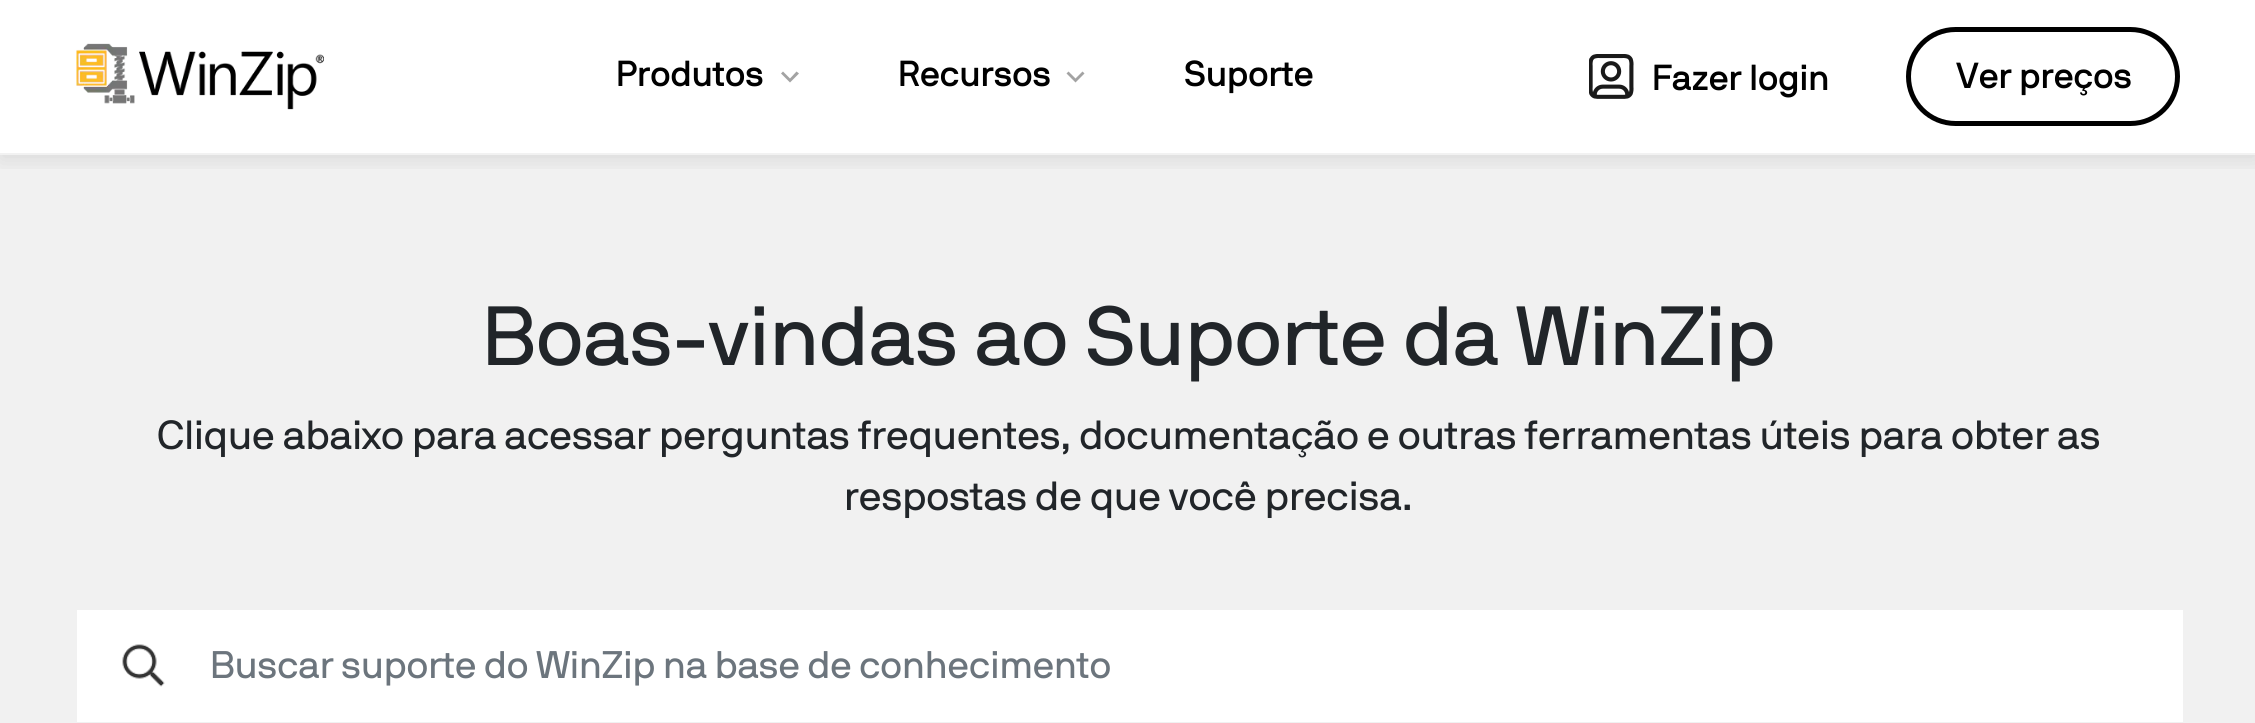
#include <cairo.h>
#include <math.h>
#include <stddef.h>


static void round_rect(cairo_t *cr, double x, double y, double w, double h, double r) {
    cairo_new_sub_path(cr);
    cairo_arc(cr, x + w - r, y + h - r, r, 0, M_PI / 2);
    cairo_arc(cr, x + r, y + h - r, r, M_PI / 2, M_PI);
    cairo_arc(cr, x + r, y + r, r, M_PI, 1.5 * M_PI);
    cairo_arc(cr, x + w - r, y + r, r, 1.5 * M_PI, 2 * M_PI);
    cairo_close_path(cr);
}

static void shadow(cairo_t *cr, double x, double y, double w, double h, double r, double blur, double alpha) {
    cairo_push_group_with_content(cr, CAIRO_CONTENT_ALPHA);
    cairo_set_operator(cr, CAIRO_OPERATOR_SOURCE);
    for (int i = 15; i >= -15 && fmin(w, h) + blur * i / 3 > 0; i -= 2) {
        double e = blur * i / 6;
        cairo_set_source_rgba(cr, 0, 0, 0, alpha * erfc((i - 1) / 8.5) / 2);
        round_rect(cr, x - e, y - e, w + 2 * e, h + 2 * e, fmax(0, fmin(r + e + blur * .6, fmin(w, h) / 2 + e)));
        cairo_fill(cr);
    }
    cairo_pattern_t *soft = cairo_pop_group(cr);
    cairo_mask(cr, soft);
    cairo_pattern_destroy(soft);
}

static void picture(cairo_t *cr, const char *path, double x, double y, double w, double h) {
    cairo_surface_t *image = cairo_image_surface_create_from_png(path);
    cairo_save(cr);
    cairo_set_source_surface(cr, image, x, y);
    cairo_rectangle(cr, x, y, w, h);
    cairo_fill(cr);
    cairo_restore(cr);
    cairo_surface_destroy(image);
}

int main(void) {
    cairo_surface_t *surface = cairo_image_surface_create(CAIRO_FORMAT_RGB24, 2255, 723);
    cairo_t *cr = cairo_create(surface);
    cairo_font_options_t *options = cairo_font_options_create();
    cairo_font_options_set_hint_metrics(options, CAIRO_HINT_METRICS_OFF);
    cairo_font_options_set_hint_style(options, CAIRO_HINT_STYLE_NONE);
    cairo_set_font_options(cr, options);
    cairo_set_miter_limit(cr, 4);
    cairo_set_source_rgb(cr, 1, 1, 1);
    cairo_paint(cr);
    cairo_set_source_rgb(cr, 0.945, 0.945, 0.945);
    cairo_rectangle(cr, 0, 155, 2255, 568);
    cairo_fill(cr);
    cairo_save(cr);
    cairo_rectangle(cr, 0, 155, 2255, 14);
    cairo_clip(cr);
    cairo_set_source_rgb(cr, 0, 0, 0);
    shadow(cr, 0, 5, 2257, 155, 0, 11, 0.1);
    cairo_restore(cr);
    cairo_set_source_rgb(cr, 0.949, 0.949, 0.949);
    cairo_rectangle(cr, 0, 153, 2255, 2);
    cairo_fill(cr);
    picture(cr, "img1.png", 76, 43, 248, 67);
    cairo_select_font_face(cr, "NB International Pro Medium", CAIRO_FONT_SLANT_NORMAL, CAIRO_FONT_WEIGHT_NORMAL);
    cairo_set_font_size(cr, 36);
    cairo_set_source_rgb(cr, 0, 0, 0);
    cairo_move_to(cr, 616, 86);
    cairo_show_text(cr, "Produtos");
    cairo_set_source_rgb(cr, 0.639, 0.639, 0.639);
    cairo_new_path(cr);
    cairo_move_to(cr, 783, 71.5);
    cairo_line_to(cr, 790, 78.5);
    cairo_line_to(cr, 796.5, 71.5);
    cairo_line_to(cr, 799, 73.5);
    cairo_line_to(cr, 790, 82.5);
    cairo_line_to(cr, 781, 73.5);
    cairo_close_path(cr);
    cairo_fill(cr);
    cairo_set_source_rgb(cr, 0, 0, 0);
    cairo_move_to(cr, 898, 86);
    cairo_show_text(cr, "Recursos");
    cairo_set_source_rgb(cr, 0.639, 0.639, 0.639);
    cairo_new_path(cr);
    cairo_move_to(cr, 1068.5, 71.5);
    cairo_line_to(cr, 1075.5, 78.5);
    cairo_line_to(cr, 1082.5, 71.5);
    cairo_line_to(cr, 1084.5, 73.5);
    cairo_line_to(cr, 1075.5, 82.5);
    cairo_line_to(cr, 1066.5, 73.5);
    cairo_close_path(cr);
    cairo_fill(cr);
    cairo_set_source_rgb(cr, 0, 0, 0);
    cairo_move_to(cr, 1184, 86);
    cairo_show_text(cr, "Suporte");
    picture(cr, "img2.png", 1589, 54, 45, 45);
    cairo_move_to(cr, 1652, 90);
    cairo_show_text(cr, "Fazer login");
    round_rect(cr, 1908.5, 29.5, 269, 94, 47);
    cairo_set_line_width(cr, 5);
    cairo_stroke(cr);
    cairo_move_to(cr, 1956, 88);
    cairo_show_text(cr, "Ver preços");
    cairo_select_font_face(cr, "NB International Pro", CAIRO_FONT_SLANT_NORMAL, CAIRO_FONT_WEIGHT_NORMAL);
    cairo_set_font_size(cr, 83.3);
    cairo_set_source_rgb(cr, 0.129, 0.145, 0.161);
    cairo_move_to(cr, 482, 365);
    cairo_show_text(cr, "Boas-vindas ao Suporte da WinZip");
    cairo_set_font_size(cr, 40.5);
    cairo_move_to(cr, 157, 449);
    cairo_show_text(cr, "Clique abaixo para acessar perguntas frequentes, documentação e outras ferramentas úteis para obter as");
    cairo_move_to(cr, 844, 510);
    cairo_show_text(cr, "respostas de que você precisa.");
    cairo_set_source_rgb(cr, 1, 1, 1);
    cairo_rectangle(cr, 77, 610, 2106, 112);
    cairo_fill(cr);
    picture(cr, "img3.png", 122, 644, 43, 43);
    cairo_set_font_size(cr, 38.25);
    cairo_set_source_rgb(cr, 0.424, 0.459, 0.49);
    cairo_move_to(cr, 210, 678);
    cairo_show_text(cr, "Buscar suporte do WinZip na base de conhecimento");
    cairo_surface_write_to_png(surface, "page.png");
    cairo_font_options_destroy(options);
    cairo_destroy(cr);
    cairo_surface_destroy(surface);
    return 0;
}
